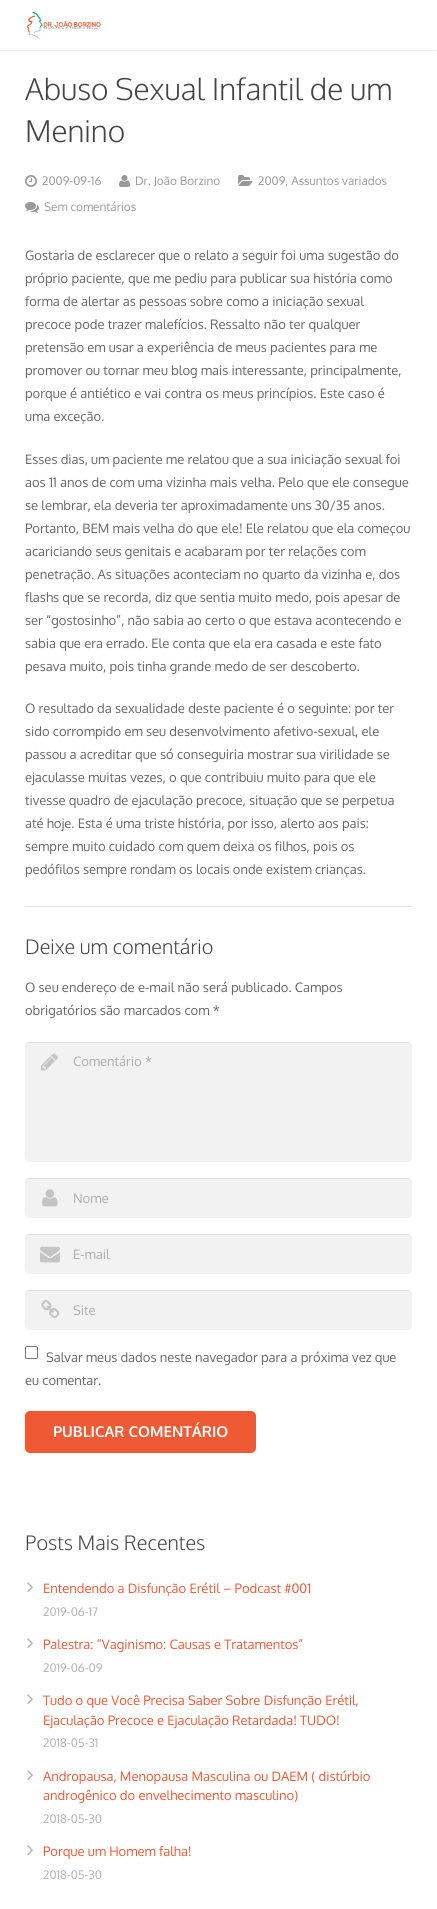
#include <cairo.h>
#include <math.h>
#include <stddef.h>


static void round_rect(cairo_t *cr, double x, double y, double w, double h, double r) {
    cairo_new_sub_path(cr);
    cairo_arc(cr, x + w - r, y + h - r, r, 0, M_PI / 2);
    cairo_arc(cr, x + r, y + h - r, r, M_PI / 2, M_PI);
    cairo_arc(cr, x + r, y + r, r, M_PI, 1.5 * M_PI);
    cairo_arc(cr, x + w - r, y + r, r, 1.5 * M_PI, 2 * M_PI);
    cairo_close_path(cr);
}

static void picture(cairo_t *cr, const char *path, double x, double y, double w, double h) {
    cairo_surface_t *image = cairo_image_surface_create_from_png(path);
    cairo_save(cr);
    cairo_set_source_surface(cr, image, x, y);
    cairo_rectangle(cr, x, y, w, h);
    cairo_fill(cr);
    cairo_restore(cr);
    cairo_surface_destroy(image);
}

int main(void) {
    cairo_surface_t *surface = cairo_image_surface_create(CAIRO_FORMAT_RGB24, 437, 1909);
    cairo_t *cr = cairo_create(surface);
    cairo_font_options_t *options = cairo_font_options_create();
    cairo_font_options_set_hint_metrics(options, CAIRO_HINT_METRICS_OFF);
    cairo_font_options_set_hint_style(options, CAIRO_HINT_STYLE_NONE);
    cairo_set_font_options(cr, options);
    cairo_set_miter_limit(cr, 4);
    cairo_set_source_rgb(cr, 1, 1, 1);
    cairo_paint(cr);
    cairo_set_source_rgb(cr, 0.922, 0.922, 0.922);
    cairo_rectangle(cr, 1, 50, 435, 1);
    cairo_fill(cr);
    picture(cr, "img1.png", 26, 11, 75, 28);
    cairo_select_font_face(cr, "Oxygen Light", CAIRO_FONT_SLANT_NORMAL, CAIRO_FONT_WEIGHT_NORMAL);
    cairo_set_font_size(cr, 30);
    cairo_set_source_rgb(cr, 0.267, 0.267, 0.267);
    cairo_move_to(cr, 25, 100);
    cairo_show_text(cr, "Abuso Sexual Infantil de um");
    cairo_move_to(cr, 25, 142);
    cairo_show_text(cr, "Menino");
    picture(cr, "img2.png", 25, 175, 12, 12);
    cairo_select_font_face(cr, "Oxygen", CAIRO_FONT_SLANT_NORMAL, CAIRO_FONT_WEIGHT_NORMAL);
    cairo_set_font_size(cr, 11.75);
    cairo_set_source_rgb(cr, 0.6, 0.6, 0.6);
    cairo_move_to(cr, 42, 185);
    cairo_show_text(cr, "2009-09-16");
    picture(cr, "img3.png", 119, 175, 11, 12);
    cairo_move_to(cr, 135, 185);
    cairo_show_text(cr, "Dr. João Borzino");
    picture(cr, "img4.png", 238, 175, 15, 11);
    cairo_move_to(cr, 258, 185);
    cairo_show_text(cr, "2009, Assuntos variados");
    picture(cr, "img5.png", 25, 202, 14, 11);
    cairo_move_to(cr, 44, 211);
    cairo_show_text(cr, "Sem comentários");
    cairo_set_font_size(cr, 13);
    cairo_set_source_rgb(cr, 0.4, 0.4, 0.4);
    cairo_move_to(cr, 25, 260);
    cairo_show_text(cr, "Gostaria de esclarecer que o relato a seguir foi uma sugestão do");
    cairo_move_to(cr, 25, 283);
    cairo_show_text(cr, "próprio paciente, que me pediu para publicar sua história como");
    cairo_move_to(cr, 25, 306);
    cairo_show_text(cr, "forma de alertar as pessoas sobre como a iniciação sexual");
    cairo_move_to(cr, 25, 329);
    cairo_show_text(cr, "precoce pode trazer malefícios. Ressalto não ter qualquer");
    cairo_move_to(cr, 25, 352);
    cairo_show_text(cr, "pretensão em usar a experiência de meus pacientes para me");
    cairo_move_to(cr, 25, 375);
    cairo_show_text(cr, "promover ou tornar meu blog mais interessante, principalmente,");
    cairo_move_to(cr, 25, 398);
    cairo_show_text(cr, "porque é antiético e vai contra os meus princípios. Este caso é");
    cairo_move_to(cr, 25, 421);
    cairo_show_text(cr, "uma exceção.");
    cairo_move_to(cr, 25, 464);
    cairo_show_text(cr, "Esses dias, um paciente me relatou que a sua iniciação sexual foi");
    cairo_move_to(cr, 25, 487);
    cairo_show_text(cr, "aos 11 anos de com uma vizinha mais velha. Pelo que ele consegue");
    cairo_move_to(cr, 25, 510);
    cairo_show_text(cr, "se lembrar, ela deveria ter aproximadamente uns 30/35 anos.");
    cairo_move_to(cr, 25, 533);
    cairo_show_text(cr, "Portanto, BEM mais velha do que ele! Ele relatou que ela começou");
    cairo_move_to(cr, 25, 556);
    cairo_show_text(cr, "acariciando seus genitais e acabaram por ter relações com");
    cairo_move_to(cr, 25, 579);
    cairo_show_text(cr, "penetração. As situações aconteciam no quarto da vizinha e, dos");
    cairo_move_to(cr, 25, 602);
    cairo_show_text(cr, "flashs que se recorda, diz que sentia muito medo, pois apesar de");
    cairo_move_to(cr, 25, 625);
    cairo_show_text(cr, "ser “gostosinho”, não sabia ao certo o que estava acontecendo e");
    cairo_move_to(cr, 25, 648);
    cairo_show_text(cr, "sabia que era errado. Ele conta que ela era casada e este fato");
    cairo_move_to(cr, 25, 671);
    cairo_show_text(cr, "pesava muito, pois tinha grande medo de ser descoberto.");
    cairo_move_to(cr, 25, 713);
    cairo_show_text(cr, "O resultado da sexualidade deste paciente é o seguinte: por ter");
    cairo_move_to(cr, 25, 736);
    cairo_show_text(cr, "sido corrompido em seu desenvolvimento afetivo-sexual, ele");
    cairo_move_to(cr, 25, 759);
    cairo_show_text(cr, "passou a acreditar que só conseguiria mostrar sua virilidade se");
    cairo_move_to(cr, 25, 782);
    cairo_show_text(cr, "ejaculasse muitas vezes, o que contribuiu muito para que ele");
    cairo_move_to(cr, 25, 805);
    cairo_show_text(cr, "tivesse quadro de ejaculação precoce, situação que se perpetua");
    cairo_move_to(cr, 25, 828);
    cairo_show_text(cr, "até hoje. Esta é uma triste história, por isso, alerto aos pais:");
    cairo_move_to(cr, 25, 851);
    cairo_show_text(cr, "sempre muito cuidado com quem deixa os filhos, pois os");
    cairo_move_to(cr, 25, 874);
    cairo_show_text(cr, "pedófilos sempre rondam os locais onde existem crianças.");
    cairo_set_source_rgb(cr, 0.91, 0.91, 0.91);
    cairo_rectangle(cr, 25, 906, 387, 1);
    cairo_fill(cr);
    cairo_select_font_face(cr, "Oxygen Light", CAIRO_FONT_SLANT_NORMAL, CAIRO_FONT_WEIGHT_NORMAL);
    cairo_set_font_size(cr, 20);
    cairo_set_source_rgb(cr, 0.267, 0.267, 0.267);
    cairo_move_to(cr, 25, 954);
    cairo_show_text(cr, "Deixe um comentário");
    cairo_select_font_face(cr, "Oxygen", CAIRO_FONT_SLANT_NORMAL, CAIRO_FONT_WEIGHT_NORMAL);
    cairo_set_font_size(cr, 13);
    cairo_set_source_rgb(cr, 0.4, 0.4, 0.4);
    cairo_move_to(cr, 25, 992);
    cairo_show_text(cr, "O seu endereço de e-mail não será publicado. Campos");
    cairo_move_to(cr, 25, 1015);
    cairo_show_text(cr, "obrigatórios são marcados com *");
    cairo_set_source_rgb(cr, 0.949, 0.949, 0.949);
    round_rect(cr, 25, 1042, 387, 120, 5);
    cairo_fill(cr);
    picture(cr, "img6.png", 41, 1053, 17, 18);
    cairo_set_source_rgba(cr, 0, 0, 0, 0.08);
    cairo_new_path(cr);
    cairo_move_to(cr, 30, 1043);
    cairo_line_to(cr, 407, 1043);
    cairo_curve_to(cr, 410, 1043, 412, 1045, 412, 1048);
    cairo_line_to(cr, 412, 1047);
    cairo_curve_to(cr, 412, 1044, 410, 1042, 407, 1042);
    cairo_line_to(cr, 30, 1042);
    cairo_curve_to(cr, 27, 1042, 25, 1044, 25, 1047);
    cairo_line_to(cr, 25, 1048);
    cairo_curve_to(cr, 25, 1045, 27, 1043, 30, 1043);
    cairo_close_path(cr);
    cairo_fill(cr);
    cairo_set_source_rgb(cr, 0.675, 0.675, 0.675);
    cairo_move_to(cr, 73, 1066);
    cairo_show_text(cr, "Comentário *");
    cairo_set_source_rgb(cr, 0.949, 0.949, 0.949);
    round_rect(cr, 25, 1178, 387, 40, 5);
    cairo_fill(cr);
    picture(cr, "img7.png", 42, 1189, 16, 18);
    cairo_set_source_rgba(cr, 0, 0, 0, 0.08);
    cairo_new_path(cr);
    cairo_move_to(cr, 30, 1179);
    cairo_line_to(cr, 407, 1179);
    cairo_curve_to(cr, 410, 1179, 412, 1181, 412, 1184);
    cairo_line_to(cr, 412, 1183);
    cairo_curve_to(cr, 412, 1180, 410, 1178, 407, 1178);
    cairo_line_to(cr, 30, 1178);
    cairo_curve_to(cr, 27, 1178, 25, 1180, 25, 1183);
    cairo_line_to(cr, 25, 1184);
    cairo_curve_to(cr, 25, 1181, 27, 1179, 30, 1179);
    cairo_close_path(cr);
    cairo_fill(cr);
    cairo_set_source_rgb(cr, 0.675, 0.675, 0.675);
    cairo_move_to(cr, 73, 1203);
    cairo_show_text(cr, "Nome");
    cairo_set_source_rgb(cr, 0.949, 0.949, 0.949);
    round_rect(cr, 25, 1234, 387, 40, 5);
    cairo_fill(cr);
    picture(cr, "img8.png", 40, 1246, 20, 17);
    cairo_set_source_rgba(cr, 0, 0, 0, 0.08);
    cairo_new_path(cr);
    cairo_move_to(cr, 30, 1235);
    cairo_line_to(cr, 407, 1235);
    cairo_curve_to(cr, 410, 1235, 412, 1237, 412, 1240);
    cairo_line_to(cr, 412, 1239);
    cairo_curve_to(cr, 412, 1236, 410, 1234, 407, 1234);
    cairo_line_to(cr, 30, 1234);
    cairo_curve_to(cr, 27, 1234, 25, 1236, 25, 1239);
    cairo_line_to(cr, 25, 1240);
    cairo_curve_to(cr, 25, 1237, 27, 1235, 30, 1235);
    cairo_close_path(cr);
    cairo_fill(cr);
    cairo_set_source_rgb(cr, 0.675, 0.675, 0.675);
    cairo_move_to(cr, 73, 1259);
    cairo_show_text(cr, "E-mail");
    cairo_set_source_rgb(cr, 0.949, 0.949, 0.949);
    round_rect(cr, 25, 1290, 387, 40, 5);
    cairo_fill(cr);
    picture(cr, "img9.png", 41, 1300, 19, 19);
    cairo_set_source_rgba(cr, 0, 0, 0, 0.08);
    cairo_new_path(cr);
    cairo_move_to(cr, 30, 1291);
    cairo_line_to(cr, 407, 1291);
    cairo_curve_to(cr, 410, 1291, 412, 1293, 412, 1296);
    cairo_line_to(cr, 412, 1295);
    cairo_curve_to(cr, 412, 1292, 410, 1290, 407, 1290);
    cairo_line_to(cr, 30, 1290);
    cairo_curve_to(cr, 27, 1290, 25, 1292, 25, 1295);
    cairo_line_to(cr, 25, 1296);
    cairo_curve_to(cr, 25, 1293, 27, 1291, 30, 1291);
    cairo_close_path(cr);
    cairo_fill(cr);
    cairo_set_source_rgb(cr, 0.675, 0.675, 0.675);
    cairo_move_to(cr, 73, 1315);
    cairo_show_text(cr, "Site");
    round_rect(cr, 25.5, 1346.5, 12, 12, 1.5);
    cairo_set_source_rgb(cr, 0.463, 0.463, 0.463);
    cairo_set_line_width(cr, 1);
    cairo_stroke(cr);
    cairo_set_source_rgb(cr, 0.4, 0.4, 0.4);
    cairo_move_to(cr, 46, 1362);
    cairo_show_text(cr, "Salvar meus dados neste navegador para a próxima vez que");
    cairo_move_to(cr, 25, 1385);
    cairo_show_text(cr, "eu comentar.");
    cairo_set_source_rgb(cr, 0.937, 0.349, 0.2);
    round_rect(cr, 25, 1411, 231, 42, 5);
    cairo_fill(cr);
    cairo_select_font_face(cr, "Oxygen", CAIRO_FONT_SLANT_NORMAL, CAIRO_FONT_WEIGHT_BOLD);
    cairo_set_font_size(cr, 15);
    cairo_set_source_rgb(cr, 1, 1, 1);
    cairo_move_to(cr, 53, 1437);
    cairo_show_text(cr, "PUBLICAR COMENTÁRIO");
    cairo_select_font_face(cr, "Oxygen Light", CAIRO_FONT_SLANT_NORMAL, CAIRO_FONT_WEIGHT_NORMAL);
    cairo_set_font_size(cr, 20);
    cairo_set_source_rgb(cr, 0.267, 0.267, 0.267);
    cairo_move_to(cr, 25, 1550);
    cairo_show_text(cr, "Posts Mais Recentes");
    picture(cr, "img10.png", 27, 1582, 6, 11);
    cairo_select_font_face(cr, "Oxygen", CAIRO_FONT_SLANT_NORMAL, CAIRO_FONT_WEIGHT_NORMAL);
    cairo_set_font_size(cr, 13);
    cairo_set_source_rgb(cr, 0.937, 0.349, 0.2);
    cairo_move_to(cr, 43, 1593);
    cairo_show_text(cr, "Entendendo a Disfunção Erétil – Podcast #001");
    cairo_set_font_size(cr, 11.75);
    cairo_set_source_rgb(cr, 0.702, 0.702, 0.702);
    cairo_move_to(cr, 43, 1616);
    cairo_show_text(cr, "2019-06-17");
    picture(cr, "img10.png", 27, 1638, 6, 11);
    cairo_set_font_size(cr, 13);
    cairo_set_source_rgb(cr, 0.937, 0.349, 0.2);
    cairo_move_to(cr, 43, 1649);
    cairo_show_text(cr, "Palestra: “Vaginismo: Causas e Tratamentos”");
    cairo_set_font_size(cr, 11.75);
    cairo_set_source_rgb(cr, 0.702, 0.702, 0.702);
    cairo_move_to(cr, 43, 1672);
    cairo_show_text(cr, "2019-06-09");
    picture(cr, "img10.png", 27, 1694, 6, 11);
    cairo_set_font_size(cr, 13);
    cairo_set_source_rgb(cr, 0.937, 0.349, 0.2);
    cairo_move_to(cr, 43, 1705);
    cairo_show_text(cr, "Tudo o que Você Precisa Saber Sobre Disfunção Erétil,");
    cairo_move_to(cr, 43, 1725);
    cairo_show_text(cr, "Ejaculação Precoce e Ejaculação Retardada! TUDO!");
    cairo_set_font_size(cr, 11.75);
    cairo_set_source_rgb(cr, 0.702, 0.702, 0.702);
    cairo_move_to(cr, 43, 1747);
    cairo_show_text(cr, "2018-05-31");
    picture(cr, "img10.png", 27, 1770, 6, 11);
    cairo_set_font_size(cr, 13);
    cairo_set_source_rgb(cr, 0.937, 0.349, 0.2);
    cairo_move_to(cr, 43, 1781);
    cairo_show_text(cr, "Andropausa, Menopausa Masculina ou DAEM ( distúrbio");
    cairo_move_to(cr, 43, 1800);
    cairo_show_text(cr, "androgênico do envelhecimento masculino)");
    cairo_set_font_size(cr, 11.75);
    cairo_set_source_rgb(cr, 0.702, 0.702, 0.702);
    cairo_move_to(cr, 43, 1823);
    cairo_show_text(cr, "2018-05-30");
    picture(cr, "img10.png", 27, 1845, 6, 11);
    cairo_set_font_size(cr, 13);
    cairo_set_source_rgb(cr, 0.937, 0.349, 0.2);
    cairo_move_to(cr, 43, 1856);
    cairo_show_text(cr, "Porque um Homem falha!");
    cairo_set_font_size(cr, 11.75);
    cairo_set_source_rgb(cr, 0.702, 0.702, 0.702);
    cairo_move_to(cr, 43, 1879);
    cairo_show_text(cr, "2018-05-30");
    cairo_surface_write_to_png(surface, "page.png");
    cairo_font_options_destroy(options);
    cairo_destroy(cr);
    cairo_surface_destroy(surface);
    return 0;
}
